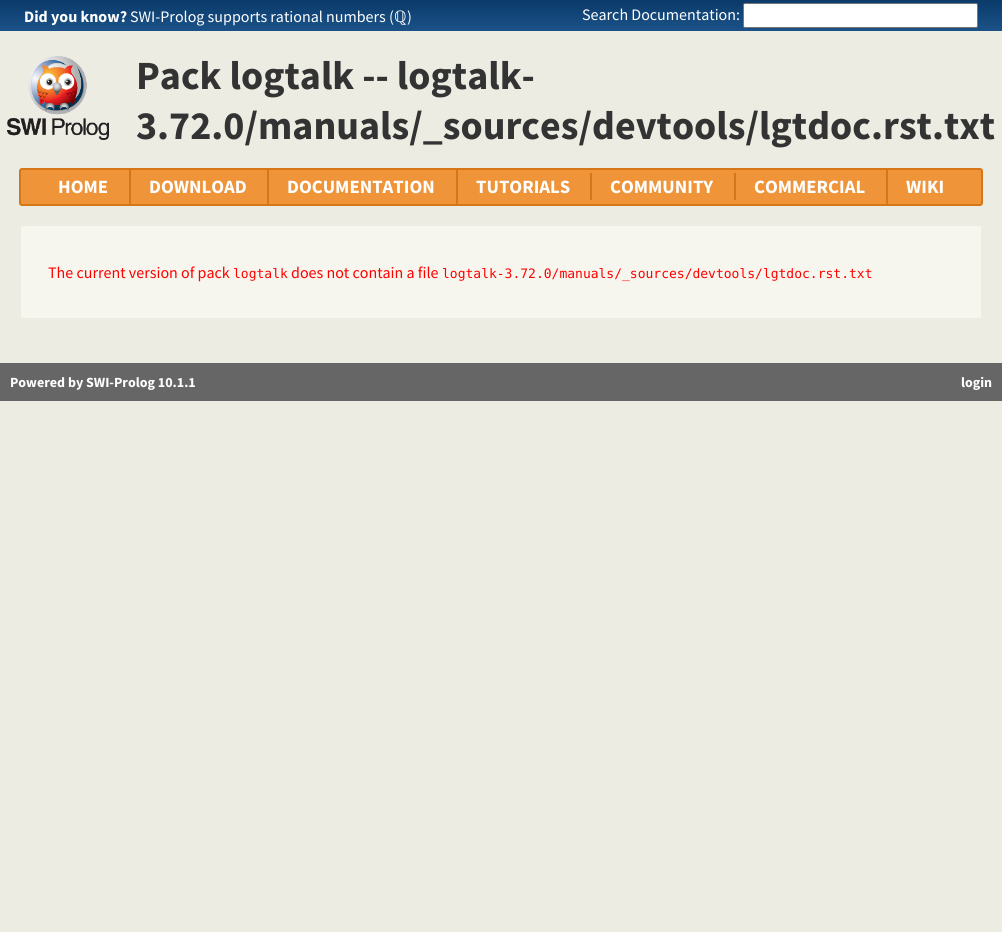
#include <cairo.h>
#include <math.h>
#include <stddef.h>


static void round_rect(cairo_t *cr, double x, double y, double w, double h, double r) {
    cairo_new_sub_path(cr);
    cairo_arc(cr, x + w - r, y + h - r, r, 0, M_PI / 2);
    cairo_arc(cr, x + r, y + h - r, r, M_PI / 2, M_PI);
    cairo_arc(cr, x + r, y + r, r, M_PI, 1.5 * M_PI);
    cairo_arc(cr, x + w - r, y + r, r, 1.5 * M_PI, 2 * M_PI);
    cairo_close_path(cr);
}

static void picture(cairo_t *cr, const char *path, double x, double y, double w, double h) {
    cairo_surface_t *image = cairo_image_surface_create_from_png(path);
    cairo_save(cr);
    cairo_set_source_surface(cr, image, x, y);
    cairo_rectangle(cr, x, y, w, h);
    cairo_fill(cr);
    cairo_restore(cr);
    cairo_surface_destroy(image);
}

int main(void) {
    cairo_surface_t *surface = cairo_image_surface_create(CAIRO_FORMAT_RGB24, 1002, 932);
    cairo_t *cr = cairo_create(surface);
    cairo_font_options_t *options = cairo_font_options_create();
    cairo_font_options_set_hint_metrics(options, CAIRO_HINT_METRICS_OFF);
    cairo_font_options_set_hint_style(options, CAIRO_HINT_STYLE_NONE);
    cairo_set_font_options(cr, options);
    cairo_set_miter_limit(cr, 4);
    cairo_set_source_rgb(cr, 0.925, 0.922, 0.89);
    cairo_paint(cr);
    picture(cr, "img1.png", 0, 0, 1002, 31);
    cairo_select_font_face(cr, "Source Sans Pro", CAIRO_FONT_SLANT_NORMAL, CAIRO_FONT_WEIGHT_BOLD);
    cairo_set_font_size(cr, 16);
    cairo_set_source_rgb(cr, 1, 1, 1);
    cairo_move_to(cr, 24, 22);
    cairo_show_text(cr, "Did you know?");
    cairo_select_font_face(cr, "Source Sans Pro", CAIRO_FONT_SLANT_NORMAL, CAIRO_FONT_WEIGHT_NORMAL);
    cairo_move_to(cr, 130, 22);
    cairo_show_text(cr, "SWI-Prolog supports rational numbers (");
    cairo_select_font_face(cr, "Noto Sans", CAIRO_FONT_SLANT_NORMAL, CAIRO_FONT_WEIGHT_NORMAL);
    cairo_move_to(cr, 394, 22);
    cairo_show_text(cr, "ℚ");
    cairo_select_font_face(cr, "Source Sans Pro", CAIRO_FONT_SLANT_NORMAL, CAIRO_FONT_WEIGHT_NORMAL);
    cairo_move_to(cr, 407, 22);
    cairo_show_text(cr, ")");
    cairo_move_to(cr, 582, 20);
    cairo_show_text(cr, "Search Documentation:");
    round_rect(cr, 743.5, 3.5, 234, 24, 1.5);
    cairo_fill_preserve(cr);
    cairo_set_source_rgb(cr, 0.463, 0.463, 0.463);
    cairo_set_line_width(cr, 1);
    cairo_stroke(cr);
    picture(cr, "img2.png", 7, 56, 102, 84);
    cairo_select_font_face(cr, "Source Sans Pro", CAIRO_FONT_SLANT_NORMAL, CAIRO_FONT_WEIGHT_BOLD);
    cairo_set_font_size(cr, 40);
    cairo_set_source_rgb(cr, 0.2, 0.2, 0.2);
    cairo_move_to(cr, 136, 89);
    cairo_show_text(cr, "Pack logtalk -- logtalk-");
    cairo_move_to(cr, 136, 139);
    cairo_show_text(cr, "3.72.0/manuals/_sources/devtools/lgtdoc.rst.txt");
    cairo_set_source_rgb(cr, 0.937, 0.58, 0.224);
    round_rect(cr, 20, 169, 962, 36, 2);
    cairo_fill_preserve(cr);
    cairo_set_source_rgb(cr, 0.835, 0.467, 0.098);
    cairo_set_line_width(cr, 2);
    cairo_stroke(cr);
    cairo_set_font_size(cr, 18.75);
    cairo_set_source_rgb(cr, 1, 1, 1);
    cairo_move_to(cr, 58, 193);
    cairo_show_text(cr, "HOME");
    cairo_set_source_rgb(cr, 0.835, 0.467, 0.098);
    cairo_rectangle(cr, 129, 170, 2, 34);
    cairo_fill(cr);
    cairo_set_source_rgb(cr, 1, 1, 1);
    cairo_move_to(cr, 149, 193);
    cairo_show_text(cr, "DOWNLOAD");
    cairo_set_source_rgb(cr, 0.835, 0.467, 0.098);
    cairo_rectangle(cr, 267, 170, 2, 34);
    cairo_fill(cr);
    cairo_set_source_rgb(cr, 1, 1, 1);
    cairo_move_to(cr, 287, 193);
    cairo_show_text(cr, "DOCUMENTATION");
    cairo_set_source_rgb(cr, 0.835, 0.467, 0.098);
    cairo_rectangle(cr, 456, 170, 2, 34);
    cairo_fill(cr);
    cairo_set_source_rgb(cr, 1, 1, 1);
    cairo_move_to(cr, 476, 193);
    cairo_show_text(cr, "TUTORIALS");
    cairo_set_source_rgb(cr, 0.835, 0.467, 0.098);
    cairo_rectangle(cr, 590, 173, 2, 27);
    cairo_fill(cr);
    cairo_set_source_rgb(cr, 1, 1, 1);
    cairo_move_to(cr, 610, 193);
    cairo_show_text(cr, "COMMUNITY");
    cairo_set_source_rgb(cr, 0.835, 0.467, 0.098);
    cairo_rectangle(cr, 734, 173, 2, 27);
    cairo_fill(cr);
    cairo_set_source_rgb(cr, 1, 1, 1);
    cairo_move_to(cr, 754, 193);
    cairo_show_text(cr, "COMMERCIAL");
    cairo_set_source_rgb(cr, 0.835, 0.467, 0.098);
    cairo_rectangle(cr, 886, 170, 2, 34);
    cairo_fill(cr);
    cairo_set_source_rgb(cr, 1, 1, 1);
    cairo_move_to(cr, 906, 193);
    cairo_show_text(cr, "WIKI");
    cairo_set_source_rgb(cr, 0.965, 0.961, 0.933);
    cairo_rectangle(cr, 21, 226, 960, 92);
    cairo_fill(cr);
    cairo_select_font_face(cr, "Source Sans Pro", CAIRO_FONT_SLANT_NORMAL, CAIRO_FONT_WEIGHT_NORMAL);
    cairo_set_font_size(cr, 16);
    cairo_set_source_rgb(cr, 1, 0, 0);
    cairo_move_to(cr, 48, 278);
    cairo_show_text(cr, "The current version of pack");
    cairo_select_font_face(cr, "DejaVu Sans Mono", CAIRO_FONT_SLANT_NORMAL, CAIRO_FONT_WEIGHT_NORMAL);
    cairo_set_font_size(cr, 13);
    cairo_move_to(cr, 233, 278);
    cairo_show_text(cr, "logtalk");
    cairo_select_font_face(cr, "Source Sans Pro", CAIRO_FONT_SLANT_NORMAL, CAIRO_FONT_WEIGHT_NORMAL);
    cairo_set_font_size(cr, 16);
    cairo_move_to(cr, 291, 278);
    cairo_show_text(cr, "does not contain a file");
    cairo_select_font_face(cr, "DejaVu Sans Mono", CAIRO_FONT_SLANT_NORMAL, CAIRO_FONT_WEIGHT_NORMAL);
    cairo_set_font_size(cr, 13);
    cairo_move_to(cr, 442, 278);
    cairo_show_text(cr, "logtalk-3.72.0/manuals/_sources/devtools/lgtdoc.rst.txt");
    cairo_set_source_rgb(cr, 0.4, 0.4, 0.4);
    cairo_rectangle(cr, 0, 363, 1002, 38);
    cairo_fill(cr);
    cairo_select_font_face(cr, "Source Sans Pro", CAIRO_FONT_SLANT_NORMAL, CAIRO_FONT_WEIGHT_BOLD);
    cairo_set_font_size(cr, 14);
    cairo_set_source_rgb(cr, 1, 1, 1);
    cairo_move_to(cr, 10, 387);
    cairo_show_text(cr, "Powered by SWI-Prolog 10.1.1");
    cairo_move_to(cr, 961, 387);
    cairo_show_text(cr, "login");
    cairo_surface_write_to_png(surface, "page.png");
    cairo_font_options_destroy(options);
    cairo_destroy(cr);
    cairo_surface_destroy(surface);
    return 0;
}
